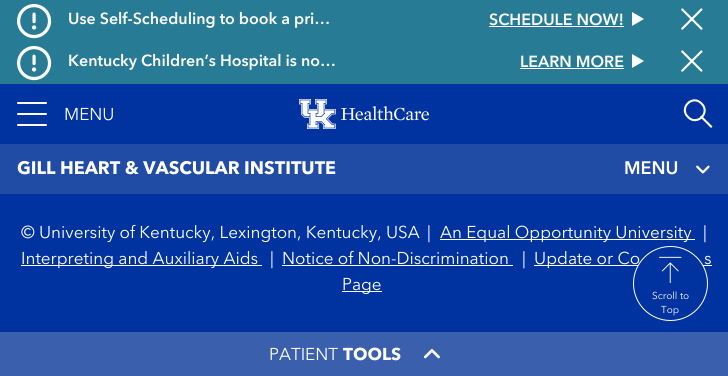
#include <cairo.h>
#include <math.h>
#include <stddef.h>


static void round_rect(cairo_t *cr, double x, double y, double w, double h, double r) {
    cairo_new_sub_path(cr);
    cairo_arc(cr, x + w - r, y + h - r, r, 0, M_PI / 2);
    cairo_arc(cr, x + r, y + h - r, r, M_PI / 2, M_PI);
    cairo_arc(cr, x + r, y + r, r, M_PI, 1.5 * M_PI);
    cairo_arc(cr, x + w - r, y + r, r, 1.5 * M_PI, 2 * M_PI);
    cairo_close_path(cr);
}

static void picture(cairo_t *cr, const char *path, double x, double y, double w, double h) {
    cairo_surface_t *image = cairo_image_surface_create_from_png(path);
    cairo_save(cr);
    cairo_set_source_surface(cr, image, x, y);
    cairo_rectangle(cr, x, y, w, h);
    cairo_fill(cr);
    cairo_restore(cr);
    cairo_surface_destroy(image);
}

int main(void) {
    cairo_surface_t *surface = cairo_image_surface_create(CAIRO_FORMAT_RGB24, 728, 376);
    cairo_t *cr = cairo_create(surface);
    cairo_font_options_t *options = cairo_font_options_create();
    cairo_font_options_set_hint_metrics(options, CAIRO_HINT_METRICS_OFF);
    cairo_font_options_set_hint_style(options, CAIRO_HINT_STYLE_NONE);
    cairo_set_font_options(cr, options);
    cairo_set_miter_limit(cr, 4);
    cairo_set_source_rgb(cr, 0, 0.2, 0.627);
    cairo_paint(cr);
    cairo_set_source_rgb(cr, 0.153, 0.482, 0.58);
    cairo_rectangle(cr, 0, 0, 728, 84);
    cairo_fill(cr);
    picture(cr, "img1.png", 17, 4, 35, 35);
    cairo_select_font_face(cr, "Avenir Next SemiBold", CAIRO_FONT_SLANT_NORMAL, CAIRO_FONT_WEIGHT_NORMAL);
    cairo_set_font_size(cr, 16);
    cairo_set_source_rgb(cr, 1, 1, 1);
    cairo_move_to(cr, 68, 24);
    cairo_show_text(cr, "Use Self-Scheduling to book a pri…");
    cairo_move_to(cr, 489, 25);
    cairo_show_text(cr, "SCHEDULE NOW!");
    cairo_rectangle(cr, 489, 26, 135, 1);
    cairo_fill(cr);
    cairo_new_path(cr);
    cairo_move_to(cr, 644, 19);
    cairo_line_to(cr, 632, 26);
    cairo_line_to(cr, 632, 12);
    cairo_close_path(cr);
    cairo_fill(cr);
    picture(cr, "img2.png", 681, 8, 22, 22);
    picture(cr, "img1.png", 17, 46, 35, 35);
    cairo_move_to(cr, 68, 66);
    cairo_show_text(cr, "Kentucky Children’s Hospital is no…");
    cairo_move_to(cr, 520, 67);
    cairo_show_text(cr, "LEARN MORE");
    cairo_rectangle(cr, 520, 68, 104, 1);
    cairo_fill(cr);
    cairo_new_path(cr);
    cairo_move_to(cr, 644, 61);
    cairo_line_to(cr, 632, 68);
    cairo_line_to(cr, 632, 54);
    cairo_close_path(cr);
    cairo_fill(cr);
    picture(cr, "img2.png", 681, 50, 22, 22);
    round_rect(cr, 17, 102, 30, 2, 1);
    cairo_fill(cr);
    round_rect(cr, 17, 113, 30, 2, 1);
    cairo_fill(cr);
    round_rect(cr, 17, 124, 30, 2, 1);
    cairo_fill(cr);
    cairo_select_font_face(cr, "Avenir Next", CAIRO_FONT_SLANT_NORMAL, CAIRO_FONT_WEIGHT_NORMAL);
    cairo_set_font_size(cr, 17.1);
    cairo_move_to(cr, 64, 120);
    cairo_show_text(cr, "MENU");
    picture(cr, "img3.png", 299, 99, 130, 30);
    cairo_new_path(cr);
    cairo_move_to(cr, 701.5, 103.5);
    cairo_curve_to(cr, 711, 112.5, 697, 126.5, 688, 117);
    cairo_curve_to(cr, 678.5, 108, 692.5, 94, 701.5, 103.5);
    cairo_close_path(cr);
    cairo_set_line_width(cr, 2.1);
    cairo_stroke(cr);
    cairo_new_path(cr);
    cairo_move_to(cr, 701.5, 117);
    cairo_line_to(cr, 711, 126.5);
    cairo_set_line_cap(cr, CAIRO_LINE_CAP_SQUARE);
    cairo_stroke(cr);
    cairo_set_source_rgb(cr, 0.227, 0.373, 0.678);
    cairo_rectangle(cr, 0, 332, 728, 44);
    cairo_fill(cr);
    cairo_set_source_rgb(cr, 1, 1, 1);
    cairo_move_to(cr, 269, 360);
    cairo_show_text(cr, "PATIENT");
    cairo_select_font_face(cr, "Avenir Next", CAIRO_FONT_SLANT_NORMAL, CAIRO_FONT_WEIGHT_BOLD);
    cairo_move_to(cr, 343, 360);
    cairo_show_text(cr, "TOOLS");
    picture(cr, "img4.png", 424, 349, 16, 10);
    cairo_set_source_rgb(cr, 0.125, 0.298, 0.647);
    cairo_rectangle(cr, 0, 144, 728, 50);
    cairo_fill(cr);
    cairo_set_font_size(cr, 18);
    cairo_set_source_rgb(cr, 1, 1, 1);
    cairo_move_to(cr, 17, 174);
    cairo_show_text(cr, "GILL HEART & VASCULAR INSTITUTE");
    cairo_select_font_face(cr, "Avenir Next SemiBold", CAIRO_FONT_SLANT_NORMAL, CAIRO_FONT_WEIGHT_NORMAL);
    cairo_move_to(cr, 624, 174);
    cairo_show_text(cr, "MENU");
    picture(cr, "img5.png", 696, 165, 14, 9);
    cairo_select_font_face(cr, "Avenir Next", CAIRO_FONT_SLANT_NORMAL, CAIRO_FONT_WEIGHT_NORMAL);
    cairo_set_font_size(cr, 17.1);
    cairo_move_to(cr, 21, 238);
    cairo_show_text(cr, "© University of Kentucky, Lexington, Kentucky, USA");
    cairo_move_to(cr, 427, 238);
    cairo_show_text(cr, "|");
    cairo_rectangle(cr, 440, 239, 255, 1);
    cairo_fill(cr);
    cairo_move_to(cr, 440, 238);
    cairo_show_text(cr, "An Equal Opportunity University");
    cairo_move_to(cr, 703, 238);
    cairo_show_text(cr, "|");
    cairo_rectangle(cr, 21, 265, 241, 1);
    cairo_fill(cr);
    cairo_move_to(cr, 21, 264);
    cairo_show_text(cr, "Interpreting and Auxiliary Aids");
    cairo_move_to(cr, 270, 264);
    cairo_show_text(cr, "|");
    cairo_move_to(cr, 282, 264);
    cairo_show_text(cr, "Notice of Non-Discrimination");
    cairo_rectangle(cr, 282, 265, 231, 1);
    cairo_fill(cr);
    cairo_move_to(cr, 522, 264);
    cairo_show_text(cr, "|");
    cairo_rectangle(cr, 534, 265, 178, 1);
    cairo_fill(cr);
    cairo_move_to(cr, 534, 264);
    cairo_show_text(cr, "Update or Co");
    cairo_move_to(cr, 704, 264);
    cairo_show_text(cr, "s");
    cairo_rectangle(cr, 342, 291, 40, 1);
    cairo_fill(cr);
    cairo_move_to(cr, 342, 290);
    cairo_show_text(cr, "Page");
    cairo_set_source_rgb(cr, 0, 0.2, 0.627);
    cairo_new_path(cr);
    cairo_arc(cr, 670.5, 283.5, 37, 0, 2 * M_PI);
    cairo_fill_preserve(cr);
    cairo_set_source_rgb(cr, 1, 1, 1);
    cairo_set_line_width(cr, 1);
    cairo_set_line_cap(cr, CAIRO_LINE_CAP_BUTT);
    cairo_stroke(cr);
    picture(cr, "img6.png", 659, 256, 23, 28);
    cairo_set_font_size(cr, 10);
    cairo_move_to(cr, 652, 299);
    cairo_show_text(cr, "Scroll to");
    cairo_move_to(cr, 661, 313);
    cairo_show_text(cr, "Top");
    cairo_surface_write_to_png(surface, "page.png");
    cairo_font_options_destroy(options);
    cairo_destroy(cr);
    cairo_surface_destroy(surface);
    return 0;
}
